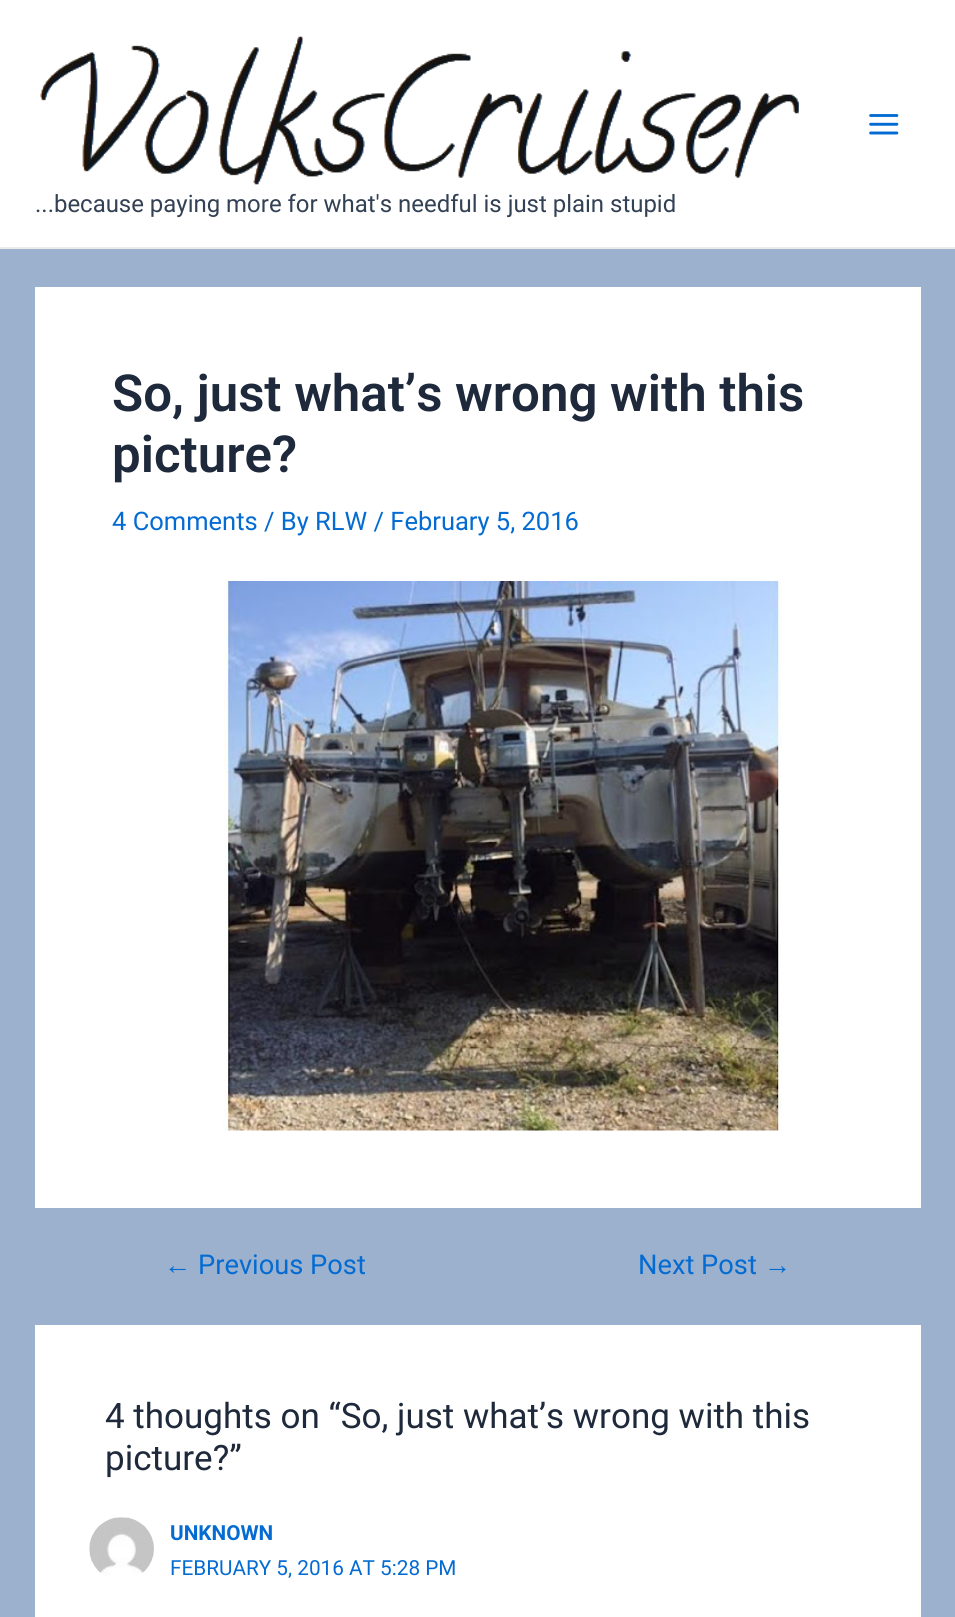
#include <cairo.h>
#include <math.h>
#include <stddef.h>


static void picture(cairo_t *cr, const char *path, double x, double y, double w, double h) {
    cairo_surface_t *image = cairo_image_surface_create_from_png(path);
    cairo_save(cr);
    cairo_set_source_surface(cr, image, x, y);
    cairo_rectangle(cr, x, y, w, h);
    cairo_fill(cr);
    cairo_restore(cr);
    cairo_surface_destroy(image);
}

int main(void) {
    cairo_surface_t *surface = cairo_image_surface_create(CAIRO_FORMAT_RGB24, 955, 1617);
    cairo_t *cr = cairo_create(surface);
    cairo_font_options_t *options = cairo_font_options_create();
    cairo_font_options_set_hint_metrics(options, CAIRO_HINT_METRICS_OFF);
    cairo_font_options_set_hint_style(options, CAIRO_HINT_STYLE_NONE);
    cairo_set_font_options(cr, options);
    cairo_set_miter_limit(cr, 4);
    cairo_set_source_rgb(cr, 0.608, 0.694, 0.804);
    cairo_paint(cr);
    cairo_set_source_rgb(cr, 1, 1, 1);
    cairo_rectangle(cr, 0, 0, 955, 247);
    cairo_fill(cr);
    cairo_set_source_rgb(cr, 0.918, 0.918, 0.918);
    cairo_rectangle(cr, 0, 247, 955, 2);
    cairo_fill(cr);
    picture(cr, "img1.png", 869, 114, 30, 21);
    picture(cr, "img2.png", 40, 36, 759, 149);
    cairo_select_font_face(cr, "Roboto", CAIRO_FONT_SLANT_NORMAL, CAIRO_FONT_WEIGHT_NORMAL);
    cairo_set_font_size(cr, 23.95);
    cairo_set_source_rgb(cr, 0.2, 0.255, 0.333);
    cairo_move_to(cr, 35, 212);
    cairo_show_text(cr, "...because paying more for what's needful is just plain stupid");
    cairo_set_source_rgb(cr, 1, 1, 1);
    cairo_rectangle(cr, 35, 287, 886, 921);
    cairo_fill(cr);
    cairo_select_font_face(cr, "Roboto SemiBold", CAIRO_FONT_SLANT_NORMAL, CAIRO_FONT_WEIGHT_NORMAL);
    cairo_set_font_size(cr, 51);
    cairo_set_source_rgb(cr, 0.118, 0.161, 0.231);
    cairo_move_to(cr, 112, 411);
    cairo_show_text(cr, "So, just what’s wrong with this");
    cairo_move_to(cr, 112, 472);
    cairo_show_text(cr, "picture?");
    cairo_select_font_face(cr, "Roboto", CAIRO_FONT_SLANT_NORMAL, CAIRO_FONT_WEIGHT_NORMAL);
    cairo_set_font_size(cr, 25.5);
    cairo_set_source_rgb(cr, 0.016, 0.42, 0.824);
    cairo_move_to(cr, 112, 530);
    cairo_show_text(cr, "4 Comments / By RLW / February 5, 2016");
    picture(cr, "img3.png", 223, 581, 559, 550);
    cairo_select_font_face(cr, "Liberation Sans", CAIRO_FONT_SLANT_NORMAL, CAIRO_FONT_WEIGHT_NORMAL);
    cairo_set_font_size(cr, 27.25);
    cairo_move_to(cr, 164, 1274);
    cairo_show_text(cr, "←");
    cairo_select_font_face(cr, "Roboto", CAIRO_FONT_SLANT_NORMAL, CAIRO_FONT_WEIGHT_NORMAL);
    cairo_move_to(cr, 198, 1274);
    cairo_show_text(cr, "Previous Post");
    cairo_move_to(cr, 638, 1274);
    cairo_show_text(cr, "Next Post");
    cairo_select_font_face(cr, "Liberation Sans", CAIRO_FONT_SLANT_NORMAL, CAIRO_FONT_WEIGHT_NORMAL);
    cairo_move_to(cr, 764, 1274);
    cairo_show_text(cr, "→");
    cairo_set_source_rgb(cr, 1, 1, 1);
    cairo_rectangle(cr, 35, 1325, 886, 292);
    cairo_fill(cr);
    cairo_select_font_face(cr, "Roboto", CAIRO_FONT_SLANT_NORMAL, CAIRO_FONT_WEIGHT_NORMAL);
    cairo_set_font_size(cr, 35);
    cairo_set_source_rgb(cr, 0.118, 0.161, 0.231);
    cairo_move_to(cr, 105, 1428);
    cairo_show_text(cr, "4 thoughts on “So, just what’s wrong with this");
    cairo_move_to(cr, 105, 1470);
    cairo_show_text(cr, "picture?”");
    picture(cr, "img4.png", 89, 1517, 65, 59);
    cairo_select_font_face(cr, "Roboto", CAIRO_FONT_SLANT_NORMAL, CAIRO_FONT_WEIGHT_BOLD);
    cairo_set_font_size(cr, 20.75);
    cairo_set_source_rgb(cr, 0.016, 0.42, 0.824);
    cairo_move_to(cr, 170, 1540);
    cairo_show_text(cr, "UNKNOWN");
    cairo_select_font_face(cr, "Roboto", CAIRO_FONT_SLANT_NORMAL, CAIRO_FONT_WEIGHT_NORMAL);
    cairo_move_to(cr, 170, 1575);
    cairo_show_text(cr, "FEBRUARY 5, 2016 AT 5:28 PM");
    cairo_surface_write_to_png(surface, "page.png");
    cairo_font_options_destroy(options);
    cairo_destroy(cr);
    cairo_surface_destroy(surface);
    return 0;
}
